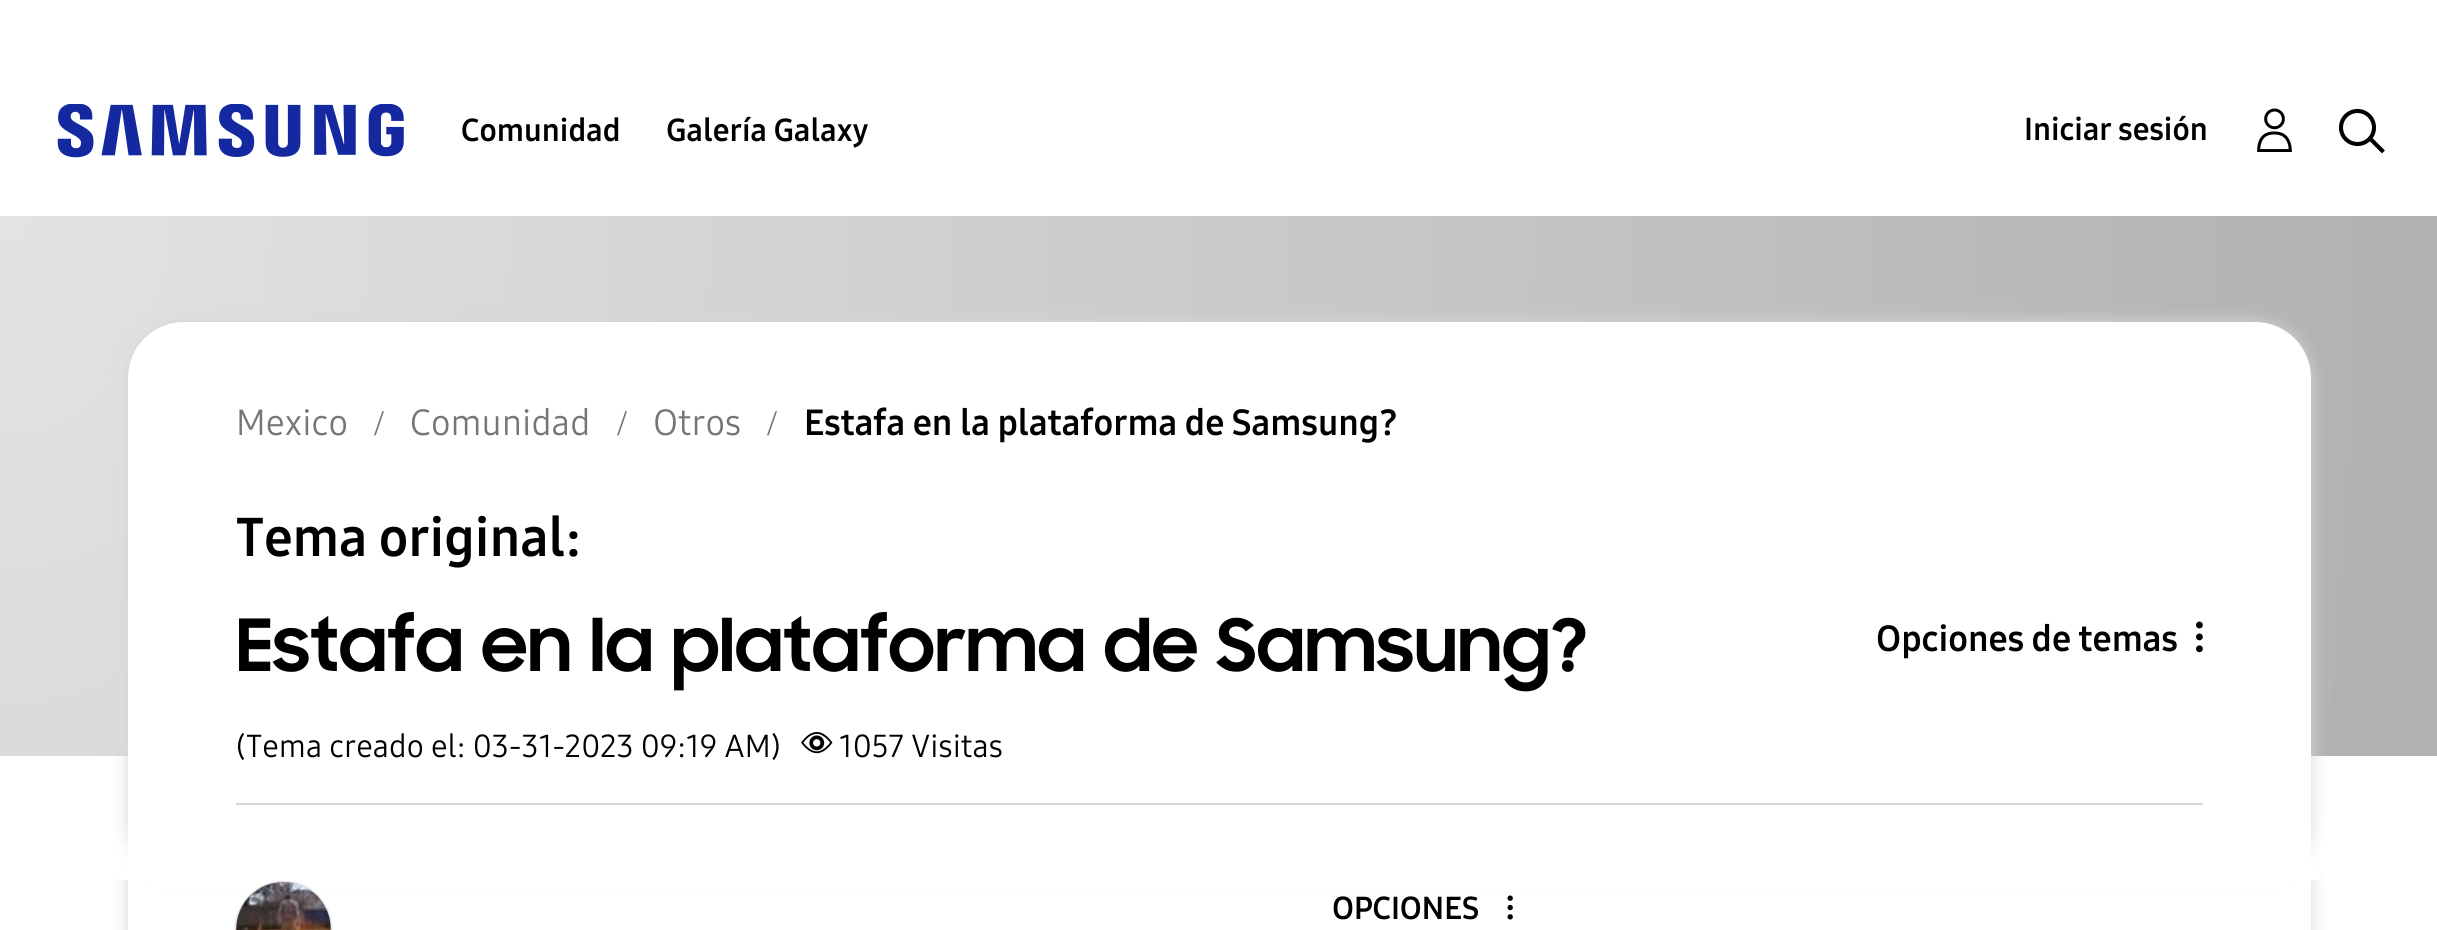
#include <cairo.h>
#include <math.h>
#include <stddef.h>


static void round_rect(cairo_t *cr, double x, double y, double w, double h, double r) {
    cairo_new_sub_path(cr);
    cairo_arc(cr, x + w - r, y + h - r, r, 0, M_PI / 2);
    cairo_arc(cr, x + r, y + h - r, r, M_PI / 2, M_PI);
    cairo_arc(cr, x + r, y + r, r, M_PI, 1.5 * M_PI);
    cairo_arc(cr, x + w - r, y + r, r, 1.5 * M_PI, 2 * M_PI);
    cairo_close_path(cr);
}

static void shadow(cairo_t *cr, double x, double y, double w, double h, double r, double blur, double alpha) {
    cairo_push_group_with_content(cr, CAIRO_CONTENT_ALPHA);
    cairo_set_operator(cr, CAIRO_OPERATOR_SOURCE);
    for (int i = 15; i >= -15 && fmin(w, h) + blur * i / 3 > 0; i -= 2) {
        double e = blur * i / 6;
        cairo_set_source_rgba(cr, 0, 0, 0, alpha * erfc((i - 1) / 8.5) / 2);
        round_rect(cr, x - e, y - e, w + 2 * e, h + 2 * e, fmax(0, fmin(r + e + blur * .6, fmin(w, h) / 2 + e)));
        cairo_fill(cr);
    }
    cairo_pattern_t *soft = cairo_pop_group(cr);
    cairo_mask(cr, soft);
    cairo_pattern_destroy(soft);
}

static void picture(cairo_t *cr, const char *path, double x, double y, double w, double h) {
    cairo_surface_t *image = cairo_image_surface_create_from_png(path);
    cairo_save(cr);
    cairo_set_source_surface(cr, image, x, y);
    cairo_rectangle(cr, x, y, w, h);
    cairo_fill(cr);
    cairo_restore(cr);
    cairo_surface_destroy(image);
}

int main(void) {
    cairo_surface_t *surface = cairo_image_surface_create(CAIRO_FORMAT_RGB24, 2437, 930);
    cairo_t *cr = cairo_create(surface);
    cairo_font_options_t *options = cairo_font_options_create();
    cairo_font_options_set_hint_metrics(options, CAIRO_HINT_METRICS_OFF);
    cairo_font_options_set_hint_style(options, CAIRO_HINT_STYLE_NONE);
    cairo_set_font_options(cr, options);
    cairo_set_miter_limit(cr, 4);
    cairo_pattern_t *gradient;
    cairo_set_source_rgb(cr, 1, 1, 1);
    cairo_paint(cr);
    cairo_save(cr);
    cairo_set_fill_rule(cr, CAIRO_FILL_RULE_EVEN_ODD);
    cairo_new_path(cr);
    cairo_move_to(cr, 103, 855);
    cairo_line_to(cr, 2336, 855);
    cairo_line_to(cr, 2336, 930);
    cairo_line_to(cr, 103, 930);
    cairo_close_path(cr);
    cairo_move_to(cr, 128, 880);
    cairo_line_to(cr, 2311, 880);
    cairo_line_to(cr, 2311, 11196);
    cairo_line_to(cr, 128, 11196);
    cairo_close_path(cr);
    cairo_clip(cr);
    cairo_set_source_rgb(cr, 0.839, 0.839, 0.839);
    shadow(cr, 128, 880, 2183, 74, 0, 8, 1);
    cairo_restore(cr);
    cairo_set_source_rgb(cr, 1, 1, 1);
    cairo_rectangle(cr, 119, 868, 2201, 12);
    cairo_fill(cr);
    picture(cr, "img1.png", 57, 104, 347, 54);
    cairo_select_font_face(cr, "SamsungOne", CAIRO_FONT_SLANT_NORMAL, CAIRO_FONT_WEIGHT_BOLD);
    cairo_set_font_size(cr, 31.5);
    cairo_set_source_rgb(cr, 0, 0, 0);
    cairo_move_to(cr, 461, 141);
    cairo_show_text(cr, "Comunidad");
    cairo_move_to(cr, 666, 141);
    cairo_show_text(cr, "Galería Galaxy");
    cairo_move_to(cr, 2024, 140);
    cairo_show_text(cr, "Iniciar sesión");
    picture(cr, "img2.png", 2257, 108, 35, 44);
    cairo_arc(cr, 2357.5, 127.5, 16.5, 0, 2 * M_PI);
    cairo_set_line_width(cr, 4.1);
    cairo_stroke(cr);
    cairo_new_path(cr);
    cairo_move_to(cr, 2371.5, 140);
    cairo_line_to(cr, 2382, 150.5);
    cairo_set_line_cap(cr, CAIRO_LINE_CAP_SQUARE);
    cairo_stroke(cr);
    gradient = cairo_pattern_create_radial(0, 0, 0, 0, 0, 1);
    cairo_pattern_set_matrix(gradient, &(cairo_matrix_t){1.0 / 2439, 0, 0, 1.0 / 3240, -1.0 * 0 / 2439, -1.0 * 216 / 3240});
    cairo_pattern_add_color_stop_rgba(gradient, 0, 0.89, 0.89, 0.89, 1);
    cairo_pattern_add_color_stop_rgba(gradient, 1, 0.694, 0.694, 0.694, 1);
    cairo_set_source(cr, gradient);
    cairo_pattern_destroy(gradient);
    cairo_rectangle(cr, 0, 216, 2437, 540);
    cairo_fill(cr);
    cairo_set_source_rgb(cr, 0.839, 0.839, 0.839);
    shadow(cr, 128, 322, 2183, 558, 56, 8, 1);
    cairo_set_source_rgb(cr, 1, 1, 1);
    cairo_new_path(cr);
    cairo_move_to(cr, 184, 322);
    cairo_line_to(cr, 2255, 322);
    cairo_curve_to(cr, 2286, 322, 2311, 347, 2311, 378);
    cairo_line_to(cr, 2311, 880);
    cairo_line_to(cr, 128, 880);
    cairo_line_to(cr, 128, 378);
    cairo_curve_to(cr, 128, 347, 153, 322, 184, 322);
    cairo_close_path(cr);
    cairo_fill(cr);
    cairo_set_source_rgb(cr, 0.839, 0.839, 0.839);
    cairo_rectangle(cr, 236, 803, 1967, 2);
    cairo_fill(cr);
    cairo_select_font_face(cr, "SamsungOne", CAIRO_FONT_SLANT_NORMAL, CAIRO_FONT_WEIGHT_NORMAL);
    cairo_set_font_size(cr, 36);
    cairo_set_source_rgb(cr, 0.463, 0.463, 0.463);
    cairo_move_to(cr, 236, 435);
    cairo_show_text(cr, "Mexico");
    cairo_select_font_face(cr, "Liberation Serif", CAIRO_FONT_SLANT_NORMAL, CAIRO_FONT_WEIGHT_NORMAL);
    cairo_move_to(cr, 374, 435);
    cairo_show_text(cr, "/");
    cairo_select_font_face(cr, "SamsungOne", CAIRO_FONT_SLANT_NORMAL, CAIRO_FONT_WEIGHT_NORMAL);
    cairo_move_to(cr, 410, 435);
    cairo_show_text(cr, "Comunidad");
    cairo_select_font_face(cr, "Liberation Serif", CAIRO_FONT_SLANT_NORMAL, CAIRO_FONT_WEIGHT_NORMAL);
    cairo_move_to(cr, 617, 435);
    cairo_show_text(cr, "/");
    cairo_select_font_face(cr, "SamsungOne", CAIRO_FONT_SLANT_NORMAL, CAIRO_FONT_WEIGHT_NORMAL);
    cairo_move_to(cr, 653, 435);
    cairo_show_text(cr, "Otros");
    cairo_select_font_face(cr, "Liberation Serif", CAIRO_FONT_SLANT_NORMAL, CAIRO_FONT_WEIGHT_NORMAL);
    cairo_move_to(cr, 767, 435);
    cairo_show_text(cr, "/");
    cairo_select_font_face(cr, "SamsungOne", CAIRO_FONT_SLANT_NORMAL, CAIRO_FONT_WEIGHT_BOLD);
    cairo_set_source_rgb(cr, 0, 0, 0);
    cairo_move_to(cr, 804, 435);
    cairo_show_text(cr, "Estafa en la plataforma de Samsung?");
    cairo_set_font_size(cr, 54);
    cairo_move_to(cr, 236, 556);
    cairo_show_text(cr, "Tema original:");
    cairo_select_font_face(cr, "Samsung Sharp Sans", CAIRO_FONT_SLANT_NORMAL, CAIRO_FONT_WEIGHT_BOLD);
    cairo_set_font_size(cr, 72);
    cairo_move_to(cr, 236, 671);
    cairo_show_text(cr, "Estafa en la plataforma de Samsung?");
    cairo_select_font_face(cr, "SamsungOne", CAIRO_FONT_SLANT_NORMAL, CAIRO_FONT_WEIGHT_BOLD);
    cairo_set_font_size(cr, 36);
    cairo_move_to(cr, 1876, 651);
    cairo_show_text(cr, "Opciones de temas");
    picture(cr, "img3.png", 2196, 621, 7, 32);
    cairo_select_font_face(cr, "SamsungOne", CAIRO_FONT_SLANT_NORMAL, CAIRO_FONT_WEIGHT_NORMAL);
    cairo_set_font_size(cr, 31.5);
    cairo_move_to(cr, 236, 757);
    cairo_show_text(cr, "(Tema creado el: 03-31-2023 09:19 AM)");
    picture(cr, "img4.png", 801, 732, 32, 22);
    cairo_move_to(cr, 839, 757);
    cairo_show_text(cr, "1057 Visitas");
    cairo_set_source_rgb(cr, 1, 1, 1);
    cairo_rectangle(cr, 147, 880, 2145, 9);
    cairo_fill(cr);
    cairo_rectangle(cr, 236, 889, 1278, 3);
    cairo_fill(cr);
    cairo_set_source_rgb(cr, 0.6, 0.6, 0.6);
    shadow(cr, 236, 882, 95, 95, 47.5, 1, 1);
    picture(cr, "img5.png", 236, 882, 95, 48);
    cairo_select_font_face(cr, "SamsungOne", CAIRO_FONT_SLANT_NORMAL, CAIRO_FONT_WEIGHT_BOLD);
    cairo_set_source_rgb(cr, 0, 0, 0);
    cairo_move_to(cr, 1332, 919);
    cairo_show_text(cr, "OPCIONES");
    picture(cr, "img6.png", 1507, 895, 6, 25);
    cairo_surface_write_to_png(surface, "page.png");
    cairo_font_options_destroy(options);
    cairo_destroy(cr);
    cairo_surface_destroy(surface);
    return 0;
}
